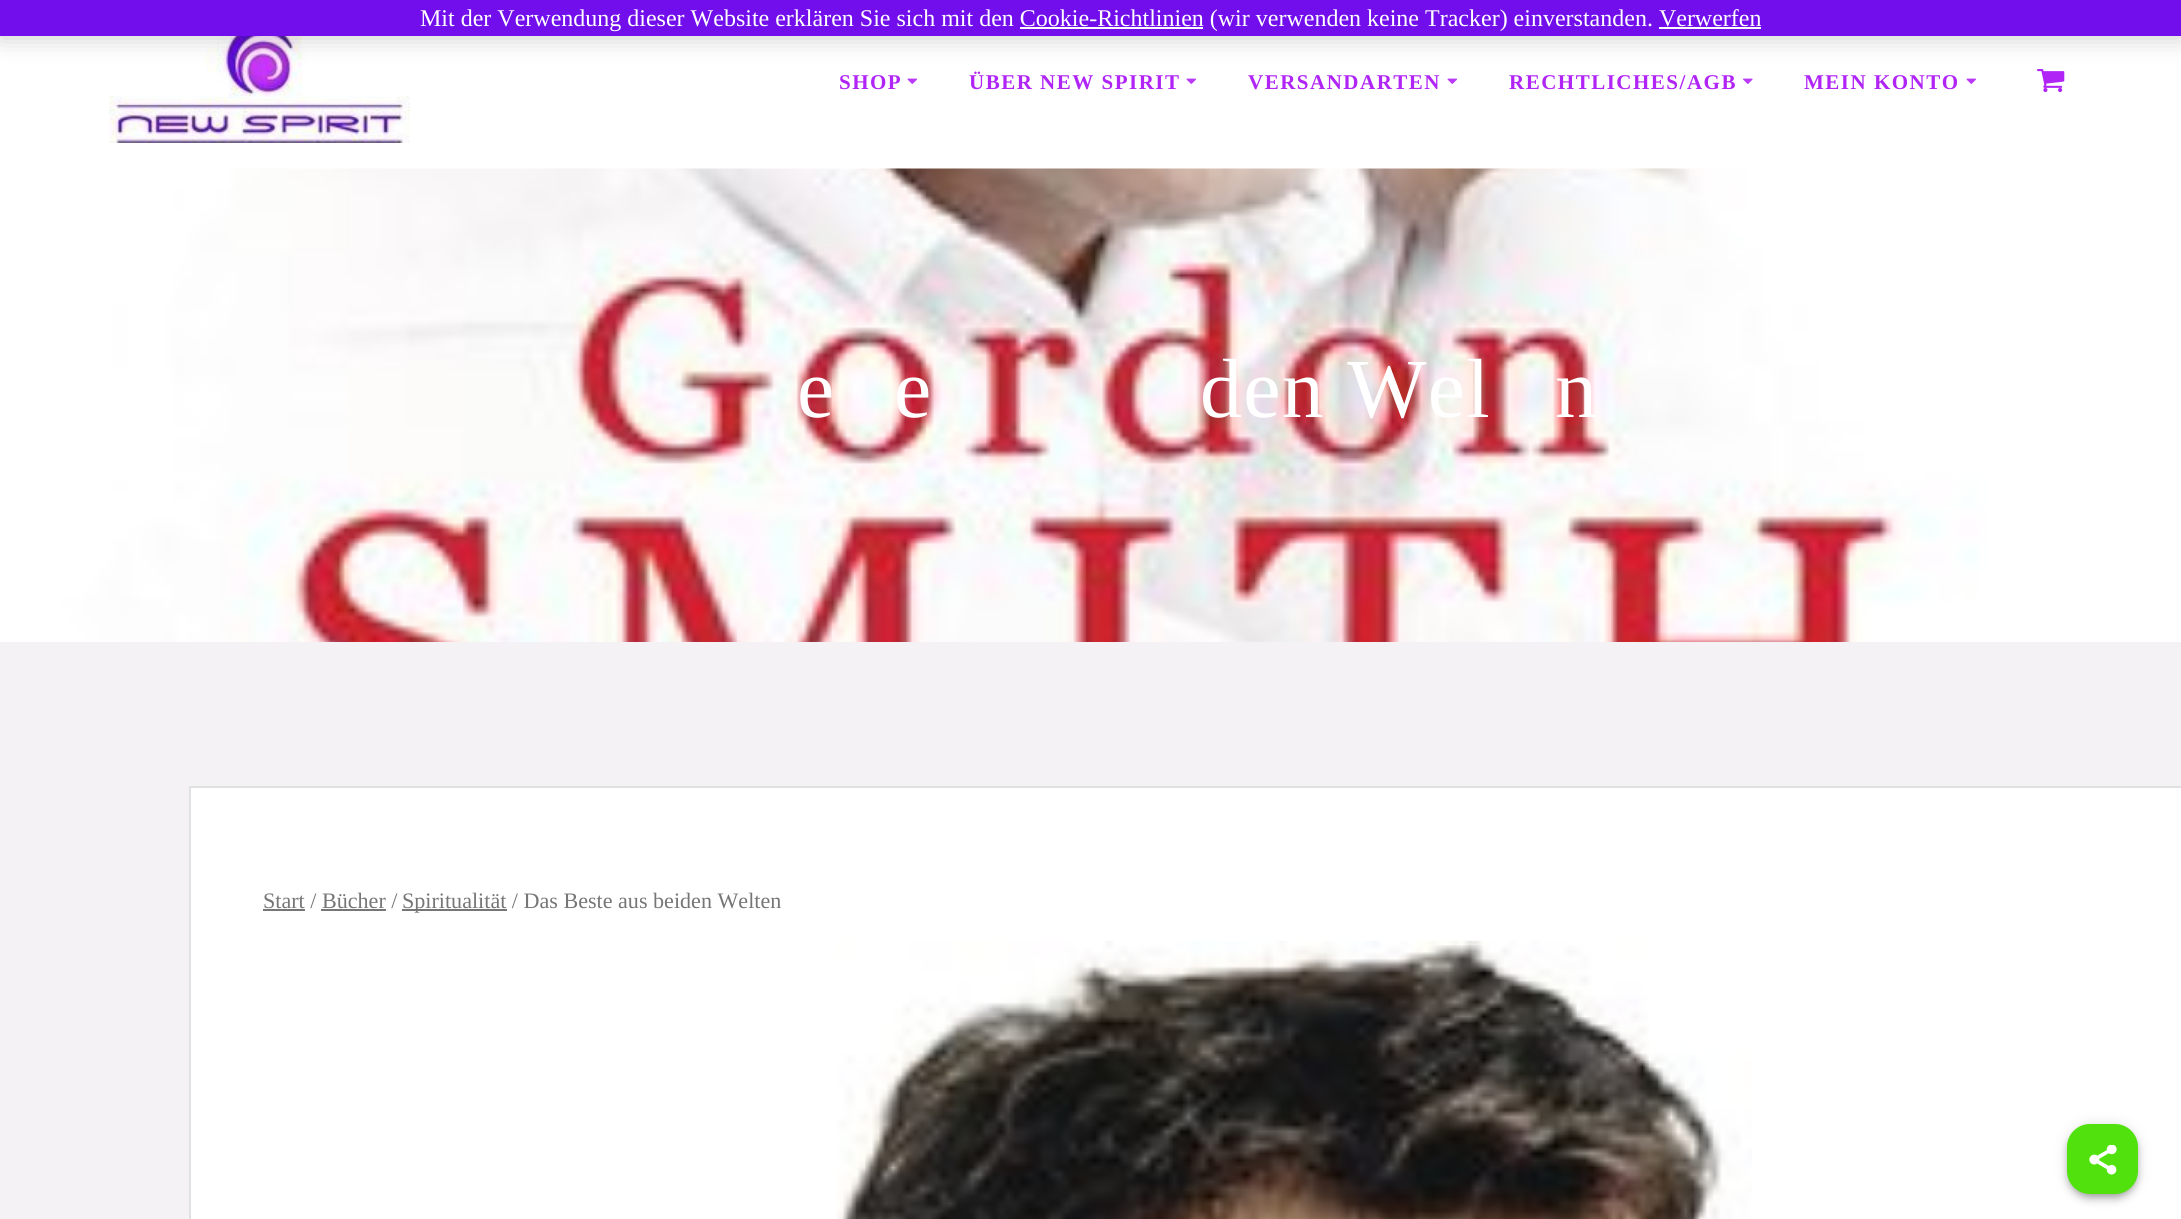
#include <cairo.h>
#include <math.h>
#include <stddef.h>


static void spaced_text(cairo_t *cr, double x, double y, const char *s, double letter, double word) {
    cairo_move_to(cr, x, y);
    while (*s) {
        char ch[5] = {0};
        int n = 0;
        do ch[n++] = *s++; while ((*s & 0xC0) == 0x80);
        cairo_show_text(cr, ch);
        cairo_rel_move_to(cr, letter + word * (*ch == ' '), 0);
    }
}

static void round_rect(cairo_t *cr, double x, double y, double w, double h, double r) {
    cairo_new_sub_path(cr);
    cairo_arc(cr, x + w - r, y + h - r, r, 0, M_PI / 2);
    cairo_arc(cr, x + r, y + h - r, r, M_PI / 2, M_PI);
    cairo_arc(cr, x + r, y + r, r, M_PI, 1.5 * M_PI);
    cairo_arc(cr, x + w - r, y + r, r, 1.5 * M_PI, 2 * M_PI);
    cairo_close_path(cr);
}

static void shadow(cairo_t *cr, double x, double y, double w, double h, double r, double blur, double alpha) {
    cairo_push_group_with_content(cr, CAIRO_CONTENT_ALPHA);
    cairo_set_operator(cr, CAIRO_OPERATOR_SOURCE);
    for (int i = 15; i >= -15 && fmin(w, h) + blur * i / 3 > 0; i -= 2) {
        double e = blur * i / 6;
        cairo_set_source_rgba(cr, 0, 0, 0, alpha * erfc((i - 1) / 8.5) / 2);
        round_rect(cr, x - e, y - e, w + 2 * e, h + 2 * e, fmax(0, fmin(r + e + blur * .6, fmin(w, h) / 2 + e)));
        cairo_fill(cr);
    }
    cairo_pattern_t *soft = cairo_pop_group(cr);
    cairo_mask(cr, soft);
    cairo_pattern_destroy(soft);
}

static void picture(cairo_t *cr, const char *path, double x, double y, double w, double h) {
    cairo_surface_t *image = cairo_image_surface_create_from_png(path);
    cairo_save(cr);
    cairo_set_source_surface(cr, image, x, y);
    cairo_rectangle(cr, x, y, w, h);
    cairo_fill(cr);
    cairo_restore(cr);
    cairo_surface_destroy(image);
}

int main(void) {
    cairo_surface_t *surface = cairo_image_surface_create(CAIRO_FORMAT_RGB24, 2181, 1219);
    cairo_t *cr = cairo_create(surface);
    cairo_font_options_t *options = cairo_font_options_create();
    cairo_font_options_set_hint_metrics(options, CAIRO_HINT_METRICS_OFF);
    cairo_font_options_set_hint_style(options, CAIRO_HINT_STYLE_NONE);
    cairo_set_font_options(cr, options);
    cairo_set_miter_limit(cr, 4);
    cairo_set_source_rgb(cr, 0.957, 0.949, 0.957);
    cairo_paint(cr);
    cairo_set_source_rgb(cr, 1, 1, 1);
    cairo_rectangle(cr, 0, 36, 2181, 132);
    cairo_fill(cr);
    picture(cr, "img1.png", 109, 36, 301, 107);
    picture(cr, "img4.png", 2037, 69, 28, 24);
    cairo_set_source_rgb(cr, 0, 0, 0);
    shadow(cr, 0, 2, 2181, 36, 0, 12, 0.2);
    cairo_set_source_rgb(cr, 0.447, 0.055, 0.925);
    cairo_rectangle(cr, 0, 0, 2181, 36);
    cairo_fill(cr);
    cairo_select_font_face(cr, "Liberation Serif", CAIRO_FONT_SLANT_NORMAL, CAIRO_FONT_WEIGHT_NORMAL);
    cairo_set_font_size(cr, 24);
    cairo_set_source_rgb(cr, 1, 1, 1);
    cairo_move_to(cr, 420, 26);
    cairo_show_text(cr, "Mit der Verwendung dieser Website erklären Sie sich mit den Cookie-Richtlinien (wir verwenden keine Tracker) einverstanden. Verwerfen");
    cairo_set_source_rgb(cr, 0.988, 0.984, 0.996);
    cairo_rectangle(cr, 1020, 27, 183, 2);
    cairo_fill(cr);
    cairo_rectangle(cr, 1659, 27, 102, 2);
    cairo_fill(cr);
    picture(cr, "img5.png", 0, 168, 2181, 474);
    cairo_set_source_rgba(cr, 1, 1, 1, 0.5);
    cairo_rectangle(cr, 288, 168, 1410, 1);
    cairo_fill(cr);
    cairo_select_font_face(cr, "Liberation Serif", CAIRO_FONT_SLANT_NORMAL, CAIRO_FONT_WEIGHT_BOLD);
    cairo_set_font_size(cr, 21);
    cairo_set_source_rgb(cr, 0.69, 0.141, 0.961);
    spaced_text(cr, 839, 89, "SHOP", 1.5, 0);
    picture(cr, "img2.png", 907, 78, 10, 6);
    spaced_text(cr, 969, 89, "ÜBER NEW SPIRIT", 1.5, 0);
    picture(cr, "img2.png", 1186, 78, 10, 6);
    spaced_text(cr, 1248, 89, "VERSANDARTEN", 1.5, 0);
    picture(cr, "img2.png", 1447, 78, 10, 6);
    spaced_text(cr, 1509, 89, "RECHTLICHES/AGB", 1.5, 0);
    picture(cr, "img3.png", 1743, 78, 10, 6);
    spaced_text(cr, 1804, 89, "MEIN KONTO", 1.5, 0);
    picture(cr, "img2.png", 1966, 78, 10, 6);
    cairo_select_font_face(cr, "Liberation Serif", CAIRO_FONT_SLANT_NORMAL, CAIRO_FONT_WEIGHT_NORMAL);
    cairo_set_font_size(cr, 84);
    cairo_set_source_rgb(cr, 1, 1, 1);
    spaced_text(cr, 797, 417, "e", 1.25, 0);
    spaced_text(cr, 894, 417, "e", 1.25, 0);
    spaced_text(cr, 1200, 417, "den Wel", 1.25, 0);
    spaced_text(cr, 1555, 417, "n", 1.25, 0);
    cairo_rectangle(cr, 190, 787, 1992, 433);
    cairo_fill_preserve(cr);
    cairo_set_source_rgb(cr, 0.878, 0.882, 0.882);
    cairo_stroke(cr);
    cairo_set_font_size(cr, 22.1);
    cairo_set_source_rgb(cr, 0.463, 0.463, 0.463);
    cairo_move_to(cr, 263, 908);
    cairo_show_text(cr, "Start / Bücher /");
    cairo_rectangle(cr, 263, 909, 42, 2);
    cairo_fill(cr);
    cairo_rectangle(cr, 402, 909, 105, 2);
    cairo_fill(cr);
    cairo_move_to(cr, 402, 908);
    cairo_show_text(cr, "Spiritualität / Das Beste aus beiden Welten");
    cairo_rectangle(cr, 321, 909, 65, 2);
    cairo_fill(cr);
    picture(cr, "img6.png", 836, 940, 916, 279);
    cairo_set_source_rgb(cr, 0, 0, 0);
    shadow(cr, 2067, 1125, 71, 71, 23, 7.5, 0.12);
    shadow(cr, 2067, 1130, 71, 70, 23, 4, 0.14);
    shadow(cr, 2069, 1128, 67, 68, 21, 3, 0.2);
    cairo_set_source_rgb(cr, 0.318, 0.886, 0.051);
    round_rect(cr, 2067, 1124, 71, 70, 23);
    cairo_fill(cr);
    picture(cr, "img7.png", 2089, 1145, 28, 30);
    cairo_surface_write_to_png(surface, "page.png");
    cairo_font_options_destroy(options);
    cairo_destroy(cr);
    cairo_surface_destroy(surface);
    return 0;
}
